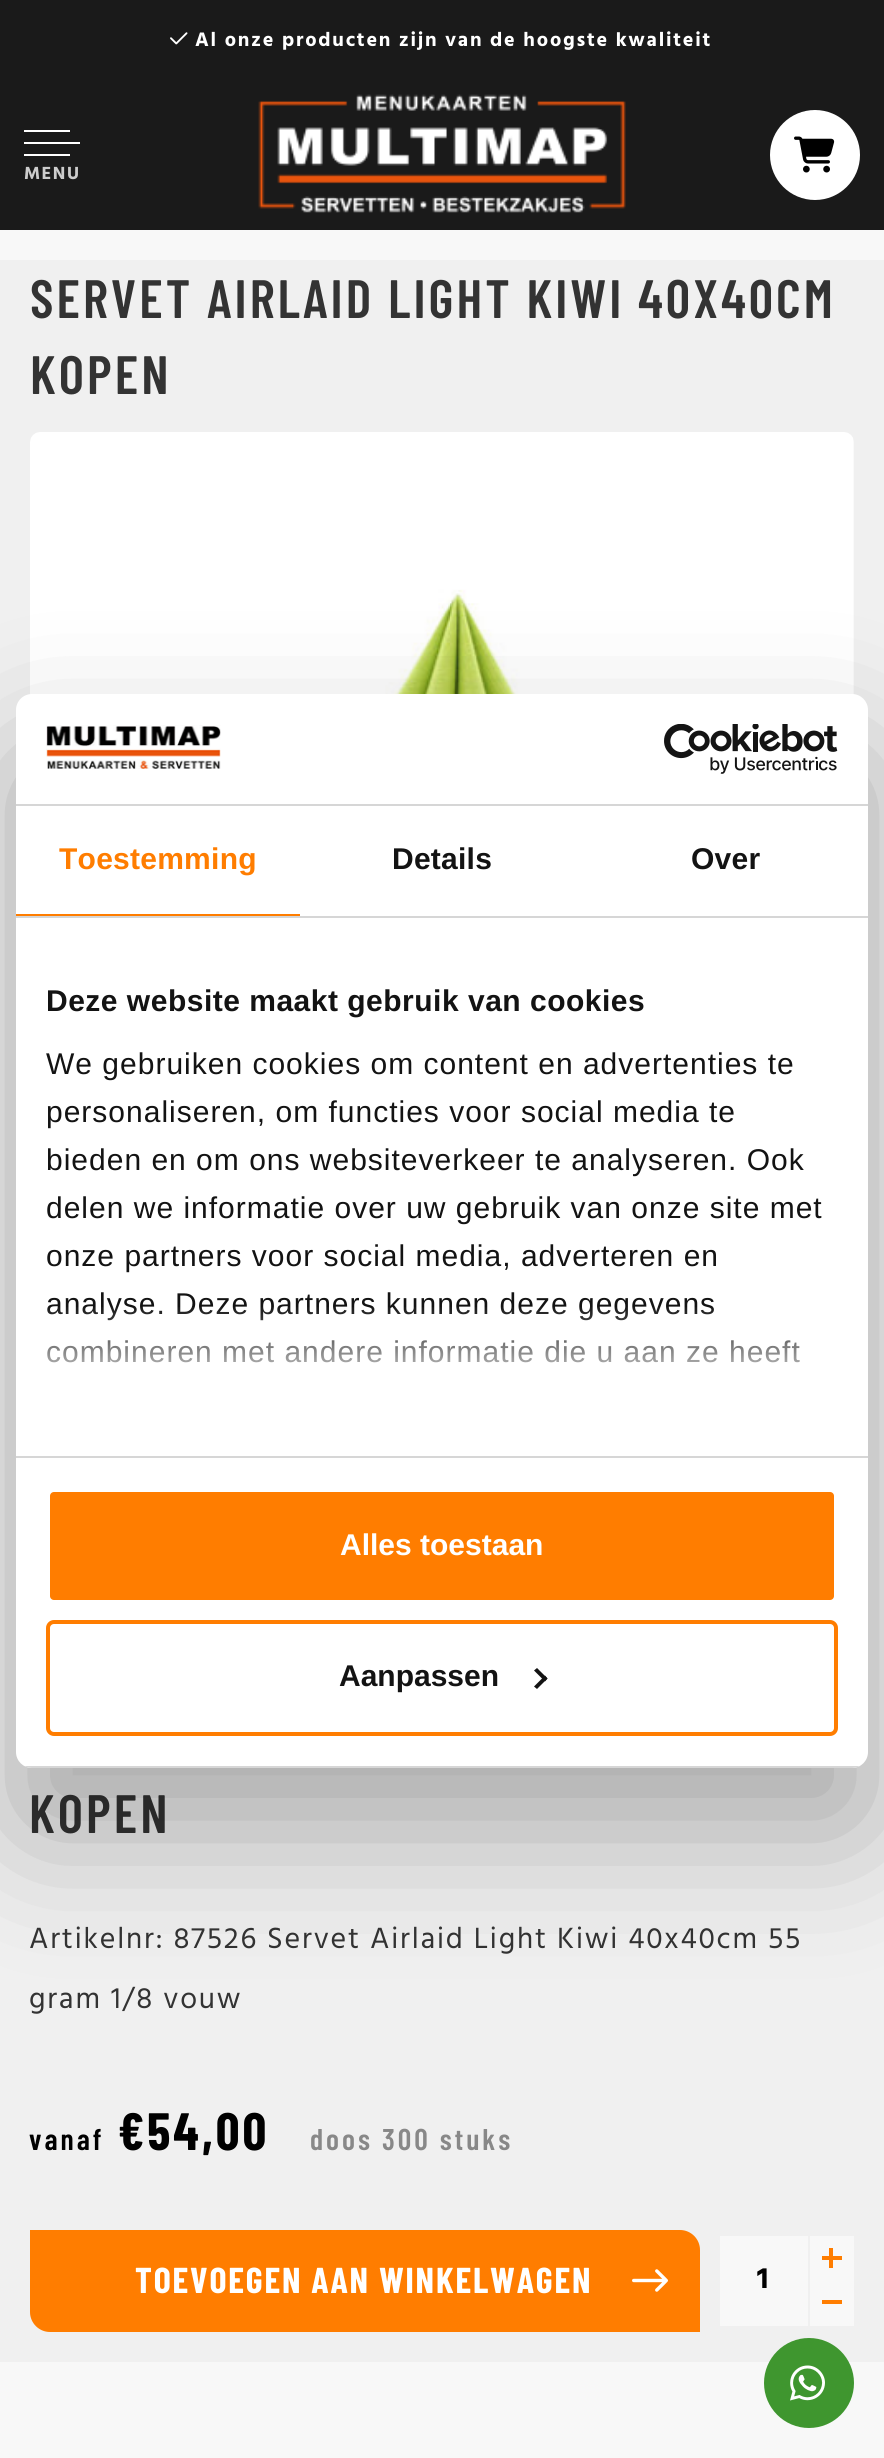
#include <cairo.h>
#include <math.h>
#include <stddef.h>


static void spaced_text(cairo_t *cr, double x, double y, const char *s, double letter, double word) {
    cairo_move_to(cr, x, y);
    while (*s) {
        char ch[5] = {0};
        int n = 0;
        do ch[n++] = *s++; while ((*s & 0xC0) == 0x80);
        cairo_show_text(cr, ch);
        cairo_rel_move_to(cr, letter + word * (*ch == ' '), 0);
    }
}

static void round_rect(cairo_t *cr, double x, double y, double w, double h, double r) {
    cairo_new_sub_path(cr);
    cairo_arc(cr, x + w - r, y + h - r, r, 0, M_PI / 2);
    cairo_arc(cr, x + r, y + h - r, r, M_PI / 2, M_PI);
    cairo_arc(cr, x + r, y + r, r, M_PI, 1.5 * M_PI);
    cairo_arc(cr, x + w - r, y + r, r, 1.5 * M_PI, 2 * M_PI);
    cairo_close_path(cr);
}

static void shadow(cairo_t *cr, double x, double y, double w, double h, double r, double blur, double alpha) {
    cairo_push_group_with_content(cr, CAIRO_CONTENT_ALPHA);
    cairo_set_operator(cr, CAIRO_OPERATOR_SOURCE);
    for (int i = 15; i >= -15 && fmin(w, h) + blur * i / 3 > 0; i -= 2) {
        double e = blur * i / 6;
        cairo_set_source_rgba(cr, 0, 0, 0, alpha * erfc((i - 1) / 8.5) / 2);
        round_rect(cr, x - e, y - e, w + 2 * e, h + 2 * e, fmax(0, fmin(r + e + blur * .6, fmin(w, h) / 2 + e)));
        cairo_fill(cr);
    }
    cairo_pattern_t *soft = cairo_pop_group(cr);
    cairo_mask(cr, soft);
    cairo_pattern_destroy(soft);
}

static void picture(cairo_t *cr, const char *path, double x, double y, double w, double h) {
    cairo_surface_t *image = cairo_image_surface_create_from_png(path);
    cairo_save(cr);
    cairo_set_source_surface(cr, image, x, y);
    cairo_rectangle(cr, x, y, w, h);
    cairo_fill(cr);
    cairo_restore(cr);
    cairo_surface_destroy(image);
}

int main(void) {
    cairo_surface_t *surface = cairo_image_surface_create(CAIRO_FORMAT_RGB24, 884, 2458);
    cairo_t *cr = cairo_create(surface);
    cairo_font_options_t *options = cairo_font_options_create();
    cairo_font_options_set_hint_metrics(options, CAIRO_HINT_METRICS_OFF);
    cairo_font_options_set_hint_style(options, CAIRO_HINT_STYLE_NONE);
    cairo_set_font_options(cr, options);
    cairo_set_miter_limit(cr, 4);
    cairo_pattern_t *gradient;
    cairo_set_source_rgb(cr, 0.969, 0.969, 0.969);
    cairo_paint(cr);
    cairo_set_source_rgb(cr, 0.102, 0.102, 0.102);
    cairo_rectangle(cr, 0, 0, 884, 230);
    cairo_fill(cr);
    picture(cr, "img1.png", 170, 32, 18, 13);
    cairo_select_font_face(cr, "Hind", CAIRO_FONT_SLANT_NORMAL, CAIRO_FONT_WEIGHT_BOLD);
    cairo_set_font_size(cr, 20);
    cairo_set_source_rgb(cr, 1, 1, 1);
    spaced_text(cr, 195, 46, "Al onze producten zijn van de hoogste kwaliteit", 1.8, 0);
    cairo_rectangle(cr, 24, 130, 46, 2);
    cairo_fill(cr);
    cairo_rectangle(cr, 24, 142, 56, 2);
    cairo_fill(cr);
    cairo_rectangle(cr, 24, 154, 46, 2);
    cairo_fill(cr);
    cairo_set_font_size(cr, 18);
    cairo_set_source_rgb(cr, 0.8, 0.8, 0.8);
    spaced_text(cr, 24, 179, "MENU", 1.5, 0);
    picture(cr, "img2.png", 258, 94, 368, 119);
    cairo_set_source_rgb(cr, 1, 1, 1);
    cairo_arc(cr, 815, 155, 45, 0, 2 * M_PI);
    cairo_fill(cr);
    picture(cr, "img3.png", 794, 136, 41, 37);
    cairo_set_source_rgb(cr, 0.941, 0.941, 0.941);
    cairo_rectangle(cr, 0, 260, 884, 2102);
    cairo_fill(cr);
    cairo_select_font_face(cr, "Barlow Condensed SemiBold", CAIRO_FONT_SLANT_NORMAL, CAIRO_FONT_WEIGHT_NORMAL);
    cairo_set_font_size(cr, 54);
    cairo_set_source_rgb(cr, 0.2, 0.2, 0.2);
    spaced_text(cr, 30, 318, "SERVET AIRLAID LIGHT KIWI 40X40CM", 3, 0);
    spaced_text(cr, 30, 394, "KOPEN", 3, 0);
    picture(cr, "img4.png", 30, 432, 824, 263);
    spaced_text(cr, 29, 1833, "KOPEN", 3, 0);
    cairo_select_font_face(cr, "Hind", CAIRO_FONT_SLANT_NORMAL, CAIRO_FONT_WEIGHT_NORMAL);
    cairo_set_font_size(cr, 30);
    spaced_text(cr, 29, 1948, "Artikelnr: 87526 Servet Airlaid Light Kiwi 40x40cm 55", 1.8, 0);
    spaced_text(cr, 29, 2008, "gram 1/8 vouw", 1.8, 0);
    cairo_select_font_face(cr, "Barlow Condensed SemiBold", CAIRO_FONT_SLANT_NORMAL, CAIRO_FONT_WEIGHT_NORMAL);
    cairo_set_source_rgb(cr, 0, 0, 0);
    spaced_text(cr, 29, 2150, "vanaf", 3, 0);
    cairo_select_font_face(cr, "Barlow Condensed", CAIRO_FONT_SLANT_NORMAL, CAIRO_FONT_WEIGHT_BOLD);
    cairo_set_font_size(cr, 52.5);
    spaced_text(cr, 118, 2150, "€54,00", 3, 0);
    cairo_select_font_face(cr, "Barlow Condensed SemiBold", CAIRO_FONT_SLANT_NORMAL, CAIRO_FONT_WEIGHT_NORMAL);
    cairo_set_font_size(cr, 30);
    cairo_set_source_rgb(cr, 0.533, 0.533, 0.533);
    spaced_text(cr, 310, 2150, "doos 300 stuks", 3, 0);
    cairo_set_source_rgb(cr, 1, 0.49, 0);
    cairo_new_path(cr);
    cairo_move_to(cr, 30, 2230);
    cairo_line_to(cr, 680, 2230);
    cairo_curve_to(cr, 691, 2230, 700, 2239, 700, 2250);
    cairo_line_to(cr, 700, 2332);
    cairo_line_to(cr, 50, 2332);
    cairo_curve_to(cr, 39, 2332, 30, 2323, 30, 2312);
    cairo_close_path(cr);
    cairo_fill(cr);
    cairo_select_font_face(cr, "Barlow Condensed", CAIRO_FONT_SLANT_NORMAL, CAIRO_FONT_WEIGHT_BOLD);
    cairo_set_font_size(cr, 36);
    cairo_set_source_rgb(cr, 1, 1, 1);
    spaced_text(cr, 135, 2293, "TOEVOEGEN AAN WINKELWAGEN", 1.8, 0);
    picture(cr, "img5.png", 632, 2269, 36, 23);
    cairo_set_source_rgb(cr, 0.969, 0.969, 0.969);
    cairo_rectangle(cr, 720, 2236, 88, 90);
    cairo_fill(cr);
    cairo_select_font_face(cr, "Hind", CAIRO_FONT_SLANT_NORMAL, CAIRO_FONT_WEIGHT_BOLD);
    cairo_set_font_size(cr, 30);
    cairo_set_source_rgb(cr, 0, 0, 0);
    cairo_move_to(cr, 757, 2288);
    cairo_show_text(cr, "1");
    cairo_set_source_rgb(cr, 0.969, 0.969, 0.969);
    cairo_rectangle(cr, 810, 2236, 44, 90);
    cairo_fill(cr);
    cairo_set_source_rgb(cr, 1, 0.49, 0);
    cairo_rectangle(cr, 822, 2256, 20, 4);
    cairo_fill(cr);
    cairo_rectangle(cr, 829, 2248, 4, 20);
    cairo_fill(cr);
    cairo_rectangle(cr, 822, 2300, 20, 4);
    cairo_fill(cr);
    cairo_set_source_rgb(cr, 0, 0, 0);
    shadow(cr, 16, 758, 852, 1074, 16, 68, 0.3);
    cairo_set_source_rgb(cr, 1, 1, 1);
    round_rect(cr, 16, 694, 852, 1074, 16);
    cairo_fill(cr);
    cairo_set_source_rgb(cr, 0.839, 0.839, 0.839);
    cairo_rectangle(cr, 16, 804, 852, 2);
    cairo_fill(cr);
    picture(cr, "img6.png", 46, 725, 175, 44);
    picture(cr, "img7.png", 664, 724, 174, 50);
    cairo_rectangle(cr, 16, 916, 852, 2);
    cairo_fill(cr);
    cairo_set_source_rgb(cr, 1, 0.49, 0);
    cairo_rectangle(cr, 16, 914, 284, 2);
    cairo_fill(cr);
    cairo_select_font_face(cr, "Liberation Sans", CAIRO_FONT_SLANT_NORMAL, CAIRO_FONT_WEIGHT_BOLD);
    spaced_text(cr, 59, 869, "Toestemming", 0.25, 0);
    cairo_set_source_rgb(cr, 0.078, 0.078, 0.078);
    spaced_text(cr, 392, 869, "Details", 0.25, 0);
    spaced_text(cr, 691, 869, "Over", 0.25, 0);
    cairo_set_source_rgb(cr, 0.839, 0.839, 0.839);
    cairo_rectangle(cr, 16, 1456, 852, 2);
    cairo_fill(cr);
    cairo_set_source_rgb(cr, 0.078, 0.078, 0.078);
    spaced_text(cr, 46, 1011, "Deze website maakt gebruik van cookies", 0.5, 0);
    cairo_select_font_face(cr, "Liberation Sans", CAIRO_FONT_SLANT_NORMAL, CAIRO_FONT_WEIGHT_NORMAL);
    spaced_text(cr, 46, 1074, "We gebruiken cookies om content en advertenties te", 1, 0);
    spaced_text(cr, 46, 1122, "personaliseren, om functies voor social media te", 1, 0);
    spaced_text(cr, 46, 1170, "bieden en om ons websiteverkeer te analyseren. Ook", 1, 0);
    spaced_text(cr, 46, 1218, "delen we informatie over uw gebruik van onze site met", 1, 0);
    spaced_text(cr, 46, 1266, "onze partners voor social media, adverteren en", 1, 0);
    spaced_text(cr, 46, 1314, "analyse. Deze partners kunnen deze gegevens", 1, 0);
    spaced_text(cr, 46, 1362, "combineren met andere informatie die u aan ze heeft", 1, 0);
    gradient = cairo_pattern_create_linear(429, 1455, 429, 1305);
    cairo_pattern_add_color_stop_rgba(gradient, 0, 1, 1, 1, 1);
    cairo_pattern_add_color_stop_rgba(gradient, 0.5, 1, 1, 1, 0.8);
    cairo_pattern_add_color_stop_rgba(gradient, 1, 1, 1, 1, 0);
    cairo_set_source(cr, gradient);
    cairo_pattern_destroy(gradient);
    cairo_rectangle(cr, 47, 1307, 753, 56);
    cairo_fill(cr);
    cairo_save(cr);
    round_rect(cr, 16, 694, 852, 1074, 16);
    cairo_clip(cr);
    cairo_set_source_rgb(cr, 0.839, 0.839, 0.839);
    cairo_rectangle(cr, 16, 1766, 852, 2);
    cairo_fill(cr);
    cairo_restore(cr);
    cairo_set_source_rgb(cr, 1, 0.49, 0);
    round_rect(cr, 48, 1490, 788, 112, 6);
    cairo_fill_preserve(cr);
    cairo_set_source_rgb(cr, 1, 1, 1);
    cairo_set_line_width(cr, 4);
    cairo_stroke(cr);
    cairo_select_font_face(cr, "Liberation Sans", CAIRO_FONT_SLANT_NORMAL, CAIRO_FONT_WEIGHT_BOLD);
    cairo_move_to(cr, 340, 1555);
    cairo_show_text(cr, "Alles toestaan");
    round_rect(cr, 48, 1622, 788, 112, 6);
    cairo_set_source_rgb(cr, 1, 0.49, 0);
    cairo_stroke(cr);
    cairo_set_source_rgb(cr, 0.078, 0.078, 0.078);
    cairo_move_to(cr, 339, 1686);
    cairo_show_text(cr, "Aanpassen");
    cairo_new_path(cr);
    cairo_move_to(cr, 537, 1668);
    cairo_line_to(cr, 547.5, 1678.5);
    cairo_line_to(cr, 545, 1681.5);
    cairo_line_to(cr, 534, 1670.5);
    cairo_close_path(cr);
    cairo_fill(cr);
    cairo_new_path(cr);
    cairo_move_to(cr, 545, 1675.5);
    cairo_line_to(cr, 547.5, 1678.5);
    cairo_line_to(cr, 537, 1689);
    cairo_line_to(cr, 534, 1686.5);
    cairo_close_path(cr);
    cairo_fill(cr);
    cairo_set_source_rgb(cr, 0.247, 0.588, 0.184);
    cairo_arc(cr, 809, 2383, 45, 0, 2 * M_PI);
    cairo_fill(cr);
    picture(cr, "img8.png", 790, 2365, 35, 36);
    cairo_surface_write_to_png(surface, "page.png");
    cairo_font_options_destroy(options);
    cairo_destroy(cr);
    cairo_surface_destroy(surface);
    return 0;
}
